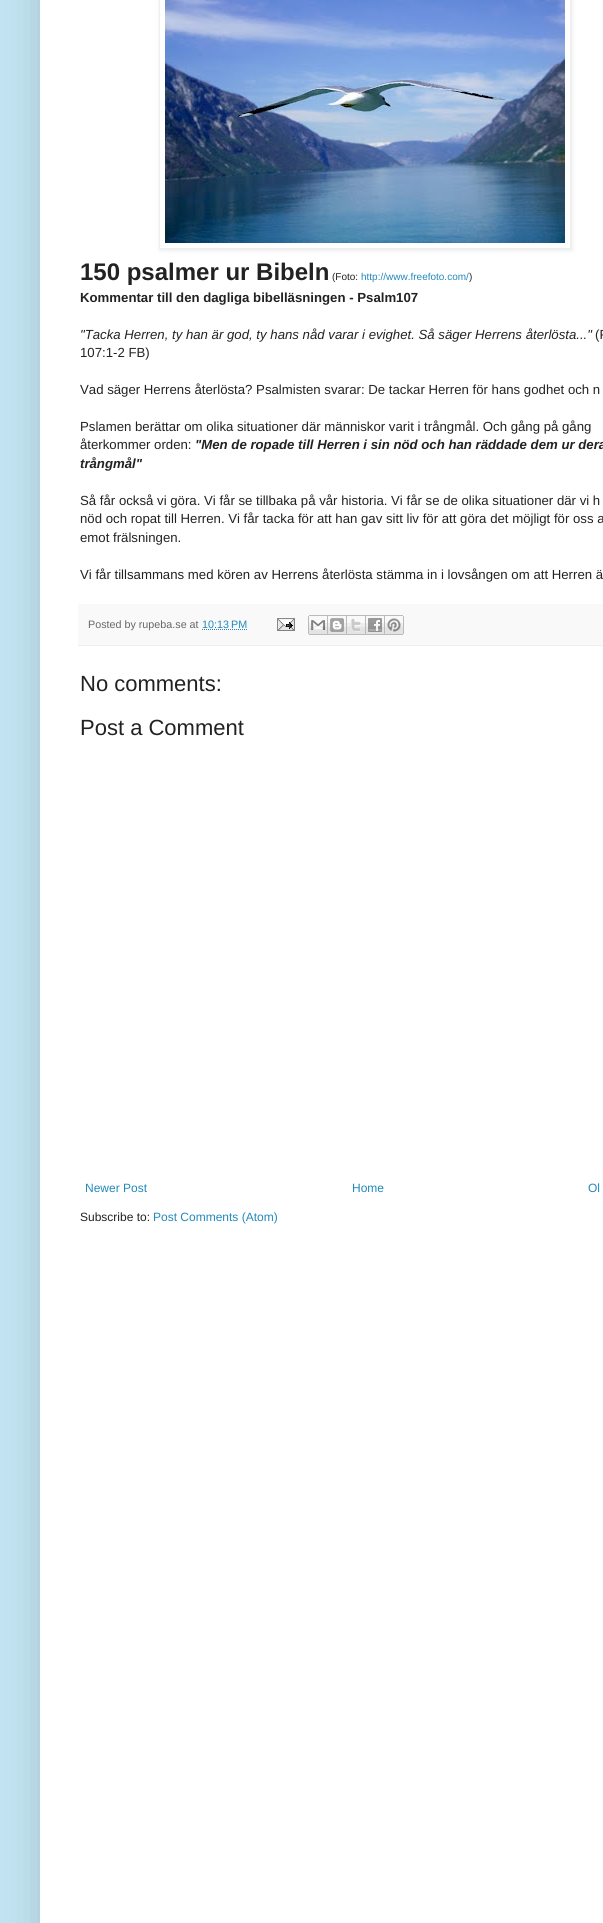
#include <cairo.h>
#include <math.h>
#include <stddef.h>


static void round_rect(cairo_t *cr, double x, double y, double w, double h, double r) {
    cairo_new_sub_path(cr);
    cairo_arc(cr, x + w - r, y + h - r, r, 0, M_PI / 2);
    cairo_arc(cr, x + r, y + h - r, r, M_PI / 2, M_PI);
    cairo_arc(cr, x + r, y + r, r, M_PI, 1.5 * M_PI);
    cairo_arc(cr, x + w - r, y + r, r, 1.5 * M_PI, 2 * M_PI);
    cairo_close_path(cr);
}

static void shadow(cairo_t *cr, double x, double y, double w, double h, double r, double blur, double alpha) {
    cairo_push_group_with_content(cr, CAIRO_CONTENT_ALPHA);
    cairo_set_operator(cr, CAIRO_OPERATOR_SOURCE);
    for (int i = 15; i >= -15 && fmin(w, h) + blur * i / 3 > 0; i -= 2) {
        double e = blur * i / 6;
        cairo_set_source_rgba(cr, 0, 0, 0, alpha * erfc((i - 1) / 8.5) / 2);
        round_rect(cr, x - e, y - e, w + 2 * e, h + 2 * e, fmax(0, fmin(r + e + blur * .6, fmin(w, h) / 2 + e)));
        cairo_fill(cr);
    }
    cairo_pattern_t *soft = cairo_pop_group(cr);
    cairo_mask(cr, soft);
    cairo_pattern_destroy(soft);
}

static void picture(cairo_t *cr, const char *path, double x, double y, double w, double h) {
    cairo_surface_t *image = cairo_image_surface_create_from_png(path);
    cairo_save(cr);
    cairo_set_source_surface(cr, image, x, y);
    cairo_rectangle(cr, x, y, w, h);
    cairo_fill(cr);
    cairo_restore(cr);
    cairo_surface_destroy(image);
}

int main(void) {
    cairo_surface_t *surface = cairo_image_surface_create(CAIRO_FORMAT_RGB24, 603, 1923);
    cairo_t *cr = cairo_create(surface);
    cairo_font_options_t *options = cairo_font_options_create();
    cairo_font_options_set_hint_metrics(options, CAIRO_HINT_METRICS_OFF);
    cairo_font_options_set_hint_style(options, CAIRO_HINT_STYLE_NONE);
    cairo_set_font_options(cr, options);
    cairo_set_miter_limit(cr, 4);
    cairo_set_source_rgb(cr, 0.761, 0.894, 0.949);
    cairo_paint(cr);
    cairo_set_source_rgb(cr, 0, 0, 0);
    shadow(cr, 40, -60, 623, 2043, 0, 20, 0.15);
    cairo_set_source_rgb(cr, 1, 1, 1);
    cairo_rectangle(cr, 40, 0, 563, 1923);
    cairo_fill(cr);
    cairo_save(cr);
    cairo_set_fill_rule(cr, CAIRO_FILL_RULE_EVEN_ODD);
    cairo_new_path(cr);
    cairo_move_to(cr, 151, 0);
    cairo_line_to(cr, 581, 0);
    cairo_line_to(cr, 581, 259);
    cairo_line_to(cr, 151, 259);
    cairo_close_path(cr);
    cairo_move_to(cr, 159, -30);
    cairo_line_to(cr, 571, -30);
    cairo_line_to(cr, 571, 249);
    cairo_line_to(cr, 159, 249);
    cairo_close_path(cr);
    cairo_clip(cr);
    cairo_set_source_rgb(cr, 0, 0, 0);
    shadow(cr, 160, -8, 412, 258, 0, 2.5, 0.1);
    cairo_restore(cr);
    cairo_rectangle(cr, 159.5, -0.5, 411, 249);
    cairo_set_source_rgb(cr, 0.933, 0.933, 0.933);
    cairo_set_line_width(cr, 1);
    cairo_stroke(cr);
    picture(cr, "img1.png", 165, 0, 400, 243);
    cairo_select_font_face(cr, "Liberation Sans", CAIRO_FONT_SLANT_NORMAL, CAIRO_FONT_WEIGHT_BOLD);
    cairo_set_font_size(cr, 24);
    cairo_set_source_rgb(cr, 0.133, 0.133, 0.133);
    cairo_move_to(cr, 80, 280);
    cairo_show_text(cr, "150 psalmer ur Bibeln");
    cairo_select_font_face(cr, "Liberation Sans", CAIRO_FONT_SLANT_NORMAL, CAIRO_FONT_WEIGHT_NORMAL);
    cairo_set_font_size(cr, 10);
    cairo_move_to(cr, 332, 280);
    cairo_show_text(cr, "(Foto:");
    cairo_set_source_rgb(cr, 0.133, 0.533, 0.733);
    cairo_move_to(cr, 361, 280);
    cairo_show_text(cr, "http://www.freefoto.com/");
    cairo_set_source_rgb(cr, 0.133, 0.133, 0.133);
    cairo_move_to(cr, 469, 280);
    cairo_show_text(cr, ")");
    cairo_select_font_face(cr, "Liberation Sans", CAIRO_FONT_SLANT_NORMAL, CAIRO_FONT_WEIGHT_BOLD);
    cairo_set_font_size(cr, 13.2);
    cairo_move_to(cr, 80, 302);
    cairo_show_text(cr, "Kommentar till den dagliga bibelläsningen - Psalm107");
    cairo_select_font_face(cr, "Liberation Sans", CAIRO_FONT_SLANT_ITALIC, CAIRO_FONT_WEIGHT_NORMAL);
    cairo_move_to(cr, 80, 339);
    cairo_show_text(cr, "\"Tacka Herren, ty han är god, ty hans nåd varar i evighet. Så säger Herrens återlösta...\"");
    cairo_select_font_face(cr, "Liberation Sans", CAIRO_FONT_SLANT_NORMAL, CAIRO_FONT_WEIGHT_NORMAL);
    cairo_move_to(cr, 595, 339);
    cairo_show_text(cr, "(P");
    cairo_move_to(cr, 80, 357);
    cairo_show_text(cr, "107:1-2 FB)");
    cairo_move_to(cr, 80, 394);
    cairo_show_text(cr, "Vad säger Herrens återlösta? Psalmisten svarar: De tackar Herren för hans godhet och n");
    cairo_move_to(cr, 80, 431);
    cairo_show_text(cr, "Pslamen berättar om olika situationer där människor varit i trångmål. Och gång på gång");
    cairo_move_to(cr, 80, 449);
    cairo_show_text(cr, "återkommer orden:");
    cairo_select_font_face(cr, "Liberation Sans", CAIRO_FONT_SLANT_ITALIC, CAIRO_FONT_WEIGHT_BOLD);
    cairo_move_to(cr, 195, 449);
    cairo_show_text(cr, "\"Men de ropade till Herren i sin nöd och han räddade dem ur dera");
    cairo_move_to(cr, 80, 468);
    cairo_show_text(cr, "trångmål\"");
    cairo_select_font_face(cr, "Liberation Sans", CAIRO_FONT_SLANT_NORMAL, CAIRO_FONT_WEIGHT_NORMAL);
    cairo_move_to(cr, 80, 505);
    cairo_show_text(cr, "Så får också vi göra. Vi får se tillbaka på vår historia. Vi får se de olika situationer där vi h");
    cairo_move_to(cr, 80, 523);
    cairo_show_text(cr, "nöd och ropat till Herren. Vi får tacka för att han gav sitt liv för att göra det möjligt för oss a");
    cairo_move_to(cr, 80, 542);
    cairo_show_text(cr, "emot frälsningen.");
    cairo_move_to(cr, 80, 579);
    cairo_show_text(cr, "Vi får tillsammans med kören av Herrens återlösta stämma in i lovsången om att Herren ä");
    cairo_set_source_rgb(cr, 0.976, 0.976, 0.976);
    cairo_rectangle(cr, 78, 604, 525, 41);
    cairo_fill(cr);
    cairo_set_source_rgb(cr, 0.933, 0.933, 0.933);
    cairo_rectangle(cr, 78, 645, 525, 1);
    cairo_fill(cr);
    cairo_set_font_size(cr, 10.75);
    cairo_set_source_rgb(cr, 0.4, 0.4, 0.4);
    cairo_move_to(cr, 88, 628);
    cairo_show_text(cr, "Posted by rupeba.se at");
    cairo_set_source_rgb(cr, 0.133, 0.533, 0.733);
    cairo_move_to(cr, 202, 628);
    cairo_show_text(cr, "10:13 PM");
    cairo_new_path(cr);
    cairo_move_to(cr, 202, 629.5);
    cairo_line_to(cr, 247.5, 629.5);
    cairo_set_dash(cr, (double[]){1, 1}, 2, 0);
    cairo_stroke(cr);
    picture(cr, "img2.png", 277, 618, 18, 13);
    picture(cr, "img3.png", 308, 615, 20, 20);
    picture(cr, "img4.png", 328, 615, 19, 20);
    picture(cr, "img5.png", 347, 615, 19, 20);
    picture(cr, "img6.png", 366, 615, 19, 20);
    picture(cr, "img7.png", 385, 615, 19, 20);
    cairo_set_font_size(cr, 22);
    cairo_set_source_rgb(cr, 0.133, 0.133, 0.133);
    cairo_move_to(cr, 80, 691);
    cairo_show_text(cr, "No comments:");
    cairo_move_to(cr, 80, 735);
    cairo_show_text(cr, "Post a Comment");
    cairo_set_font_size(cr, 12);
    cairo_set_source_rgb(cr, 0.133, 0.533, 0.733);
    cairo_move_to(cr, 85, 1192);
    cairo_show_text(cr, "Newer Post");
    cairo_move_to(cr, 352, 1192);
    cairo_show_text(cr, "Home");
    cairo_move_to(cr, 588, 1192);
    cairo_show_text(cr, "Ol");
    cairo_set_source_rgb(cr, 0.133, 0.133, 0.133);
    cairo_move_to(cr, 80, 1221);
    cairo_show_text(cr, "Subscribe to:");
    cairo_set_source_rgb(cr, 0.133, 0.533, 0.733);
    cairo_move_to(cr, 153, 1221);
    cairo_show_text(cr, "Post Comments (Atom)");
    cairo_surface_write_to_png(surface, "page.png");
    cairo_font_options_destroy(options);
    cairo_destroy(cr);
    cairo_surface_destroy(surface);
    return 0;
}
